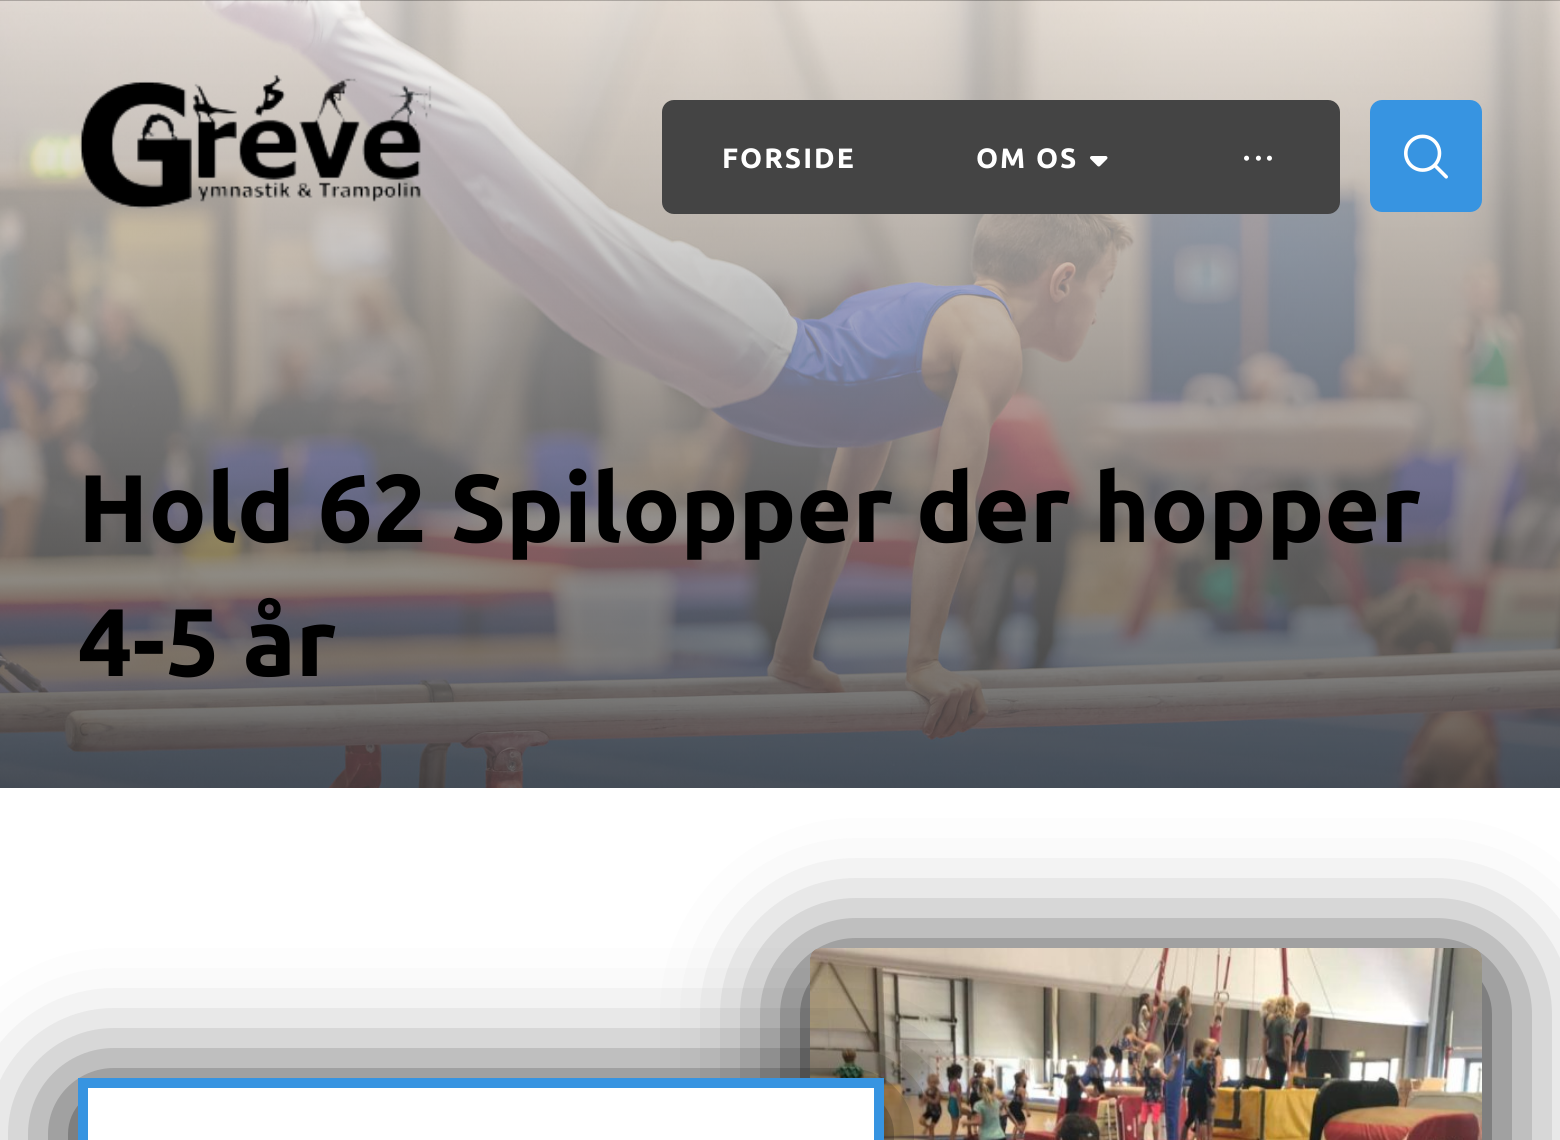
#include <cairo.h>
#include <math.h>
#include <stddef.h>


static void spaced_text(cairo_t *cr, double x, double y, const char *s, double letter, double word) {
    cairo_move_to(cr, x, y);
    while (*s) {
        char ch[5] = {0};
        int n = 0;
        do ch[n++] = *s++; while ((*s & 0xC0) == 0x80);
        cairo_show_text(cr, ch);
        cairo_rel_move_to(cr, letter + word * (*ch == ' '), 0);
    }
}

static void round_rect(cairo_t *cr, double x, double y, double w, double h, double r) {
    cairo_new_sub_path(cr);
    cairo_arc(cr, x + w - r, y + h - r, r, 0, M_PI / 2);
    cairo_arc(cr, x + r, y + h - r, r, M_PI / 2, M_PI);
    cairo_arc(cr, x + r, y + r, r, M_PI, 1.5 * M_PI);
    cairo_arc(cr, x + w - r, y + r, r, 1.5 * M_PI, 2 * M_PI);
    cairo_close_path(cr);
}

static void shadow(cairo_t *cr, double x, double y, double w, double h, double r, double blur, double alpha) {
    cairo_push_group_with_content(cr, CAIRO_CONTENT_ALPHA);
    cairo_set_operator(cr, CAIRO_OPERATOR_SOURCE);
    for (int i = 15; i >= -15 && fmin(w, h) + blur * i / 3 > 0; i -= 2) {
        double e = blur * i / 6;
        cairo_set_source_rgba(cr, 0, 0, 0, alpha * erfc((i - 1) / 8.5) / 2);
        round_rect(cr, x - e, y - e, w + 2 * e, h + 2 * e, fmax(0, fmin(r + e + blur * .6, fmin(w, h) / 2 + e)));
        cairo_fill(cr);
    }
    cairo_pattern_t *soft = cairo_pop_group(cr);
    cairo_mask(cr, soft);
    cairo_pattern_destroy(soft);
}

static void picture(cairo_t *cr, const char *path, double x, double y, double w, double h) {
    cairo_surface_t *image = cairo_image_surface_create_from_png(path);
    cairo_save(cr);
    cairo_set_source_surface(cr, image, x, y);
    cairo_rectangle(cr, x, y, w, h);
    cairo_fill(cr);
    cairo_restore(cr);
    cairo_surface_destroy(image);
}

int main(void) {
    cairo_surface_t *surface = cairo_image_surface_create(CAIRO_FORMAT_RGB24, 1560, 1140);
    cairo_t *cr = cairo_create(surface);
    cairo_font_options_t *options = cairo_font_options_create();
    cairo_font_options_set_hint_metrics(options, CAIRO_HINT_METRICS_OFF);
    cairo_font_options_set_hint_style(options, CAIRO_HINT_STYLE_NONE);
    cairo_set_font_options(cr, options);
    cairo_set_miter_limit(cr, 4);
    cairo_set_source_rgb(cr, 1, 1, 1);
    cairo_paint(cr);
    picture(cr, "img5.png", 0, 0, 1560, 788);
    picture(cr, "img1.png", 79, 74, 353, 135);
    cairo_set_source_rgb(cr, 0.267, 0.267, 0.267);
    round_rect(cr, 662, 100, 678, 114, 12);
    cairo_fill(cr);
    cairo_select_font_face(cr, "Ubuntu", CAIRO_FONT_SLANT_NORMAL, CAIRO_FONT_WEIGHT_BOLD);
    cairo_set_font_size(cr, 28);
    cairo_set_source_rgb(cr, 1, 1, 1);
    spaced_text(cr, 722, 168, "FORSIDE", 2, 0);
    spaced_text(cr, 976, 168, "OM OS", 2, 0);
    picture(cr, "img2.png", 1090, 156, 18, 11);
    picture(cr, "img3.png", 1244, 155, 28, 6);
    cairo_set_source_rgb(cr, 0.216, 0.58, 0.882);
    round_rect(cr, 1370, 100, 112, 112, 12);
    cairo_fill(cr);
    picture(cr, "img4.png", 1404, 134, 44, 45);
    cairo_set_font_size(cr, 96);
    cairo_set_source_rgb(cr, 0, 0, 0);
    cairo_move_to(cr, 78, 542);
    cairo_show_text(cr, "Hold 62 Spilopper der hopper");
    cairo_move_to(cr, 78, 676);
    cairo_show_text(cr, "4-5 år");
    cairo_set_source_rgb(cr, 0, 0, 0);
    shadow(cr, 810, 968, 672, 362, 10, 60, 1);
    picture(cr, "img6.png", 810, 948, 672, 192);
    shadow(cr, 78, 1098, 806, 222, 0, 60, 1);
    cairo_set_source_rgb(cr, 1, 1, 1);
    cairo_rectangle(cr, 83, 1083, 796, 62);
    cairo_fill_preserve(cr);
    cairo_set_source_rgb(cr, 0.216, 0.58, 0.882);
    cairo_set_line_width(cr, 10);
    cairo_stroke(cr);
    cairo_surface_write_to_png(surface, "page.png");
    cairo_font_options_destroy(options);
    cairo_destroy(cr);
    cairo_surface_destroy(surface);
    return 0;
}
